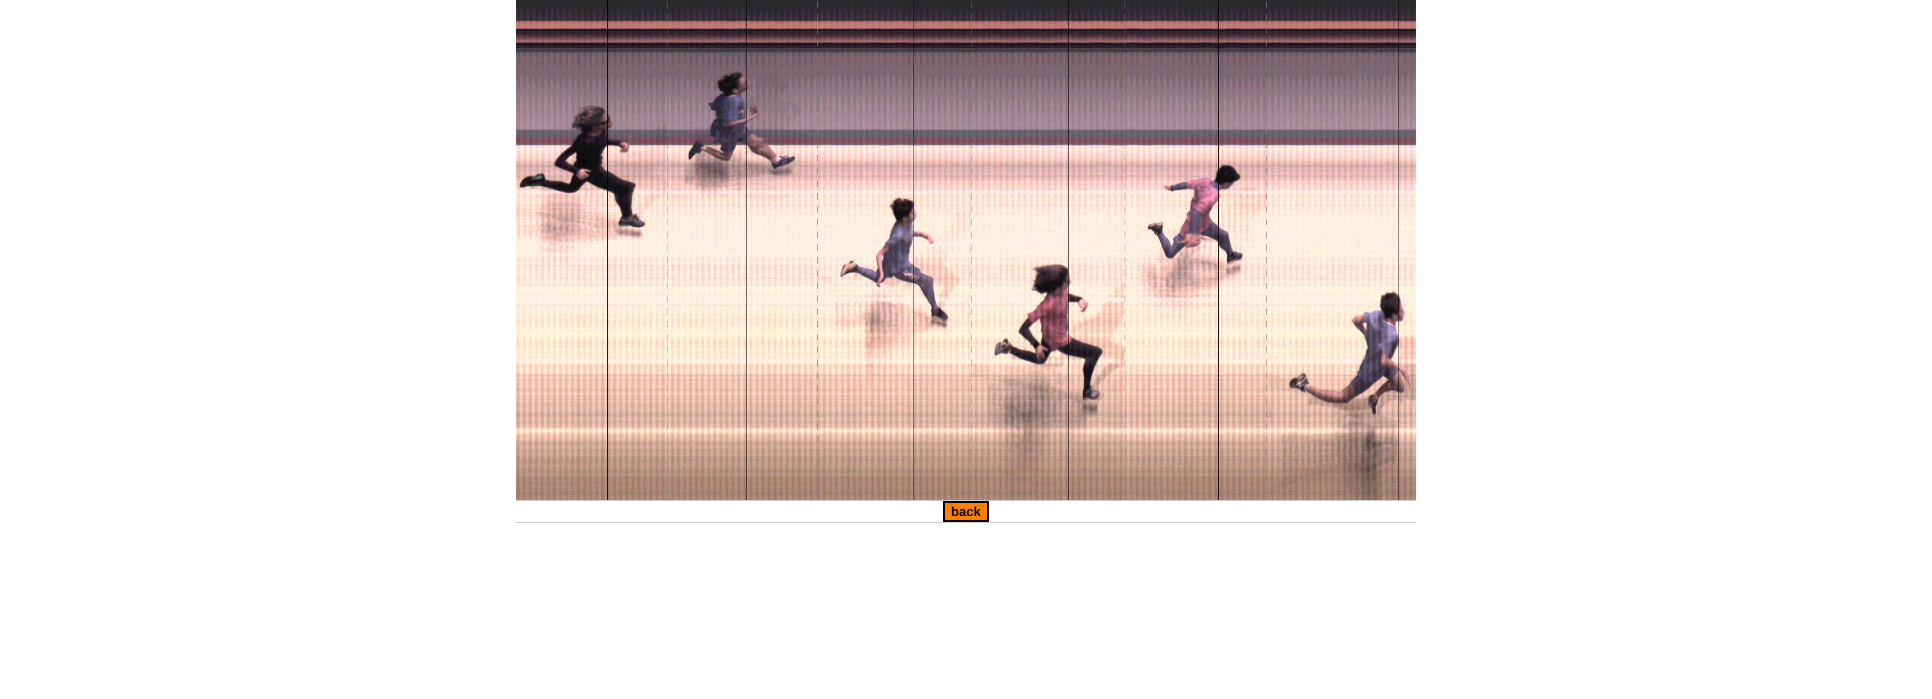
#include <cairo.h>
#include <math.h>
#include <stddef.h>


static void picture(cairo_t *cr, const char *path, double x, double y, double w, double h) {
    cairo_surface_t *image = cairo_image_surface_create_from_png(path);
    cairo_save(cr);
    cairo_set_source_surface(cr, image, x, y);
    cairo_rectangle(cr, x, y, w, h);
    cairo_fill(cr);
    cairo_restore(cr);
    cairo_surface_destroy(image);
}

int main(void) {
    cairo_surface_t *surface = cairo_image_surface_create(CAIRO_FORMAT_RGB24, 1932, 699);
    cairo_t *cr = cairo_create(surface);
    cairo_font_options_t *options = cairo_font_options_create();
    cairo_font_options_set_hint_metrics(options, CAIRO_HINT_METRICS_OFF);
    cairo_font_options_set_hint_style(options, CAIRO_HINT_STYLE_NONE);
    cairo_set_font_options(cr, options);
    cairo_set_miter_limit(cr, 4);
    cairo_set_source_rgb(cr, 1, 1, 1);
    cairo_paint(cr);
    cairo_set_source_rgb(cr, 0.8, 0.8, 0.8);
    cairo_rectangle(cr, 516, 500, 900, 1);
    cairo_fill(cr);
    picture(cr, "img1.png", 516, 0, 900, 500);
    cairo_rectangle(cr, 516, 522, 900, 1);
    cairo_fill(cr);
    cairo_set_source_rgb(cr, 1, 0.502, 0);
    cairo_rectangle(cr, 944, 502, 44, 19);
    cairo_fill_preserve(cr);
    cairo_set_source_rgb(cr, 0, 0, 0);
    cairo_stroke(cr);
    cairo_select_font_face(cr, "Liberation Sans", CAIRO_FONT_SLANT_NORMAL, CAIRO_FONT_WEIGHT_BOLD);
    cairo_set_font_size(cr, 13);
    cairo_move_to(cr, 951, 516);
    cairo_show_text(cr, "back");
    cairo_surface_write_to_png(surface, "page.png");
    cairo_font_options_destroy(options);
    cairo_destroy(cr);
    cairo_surface_destroy(surface);
    return 0;
}
